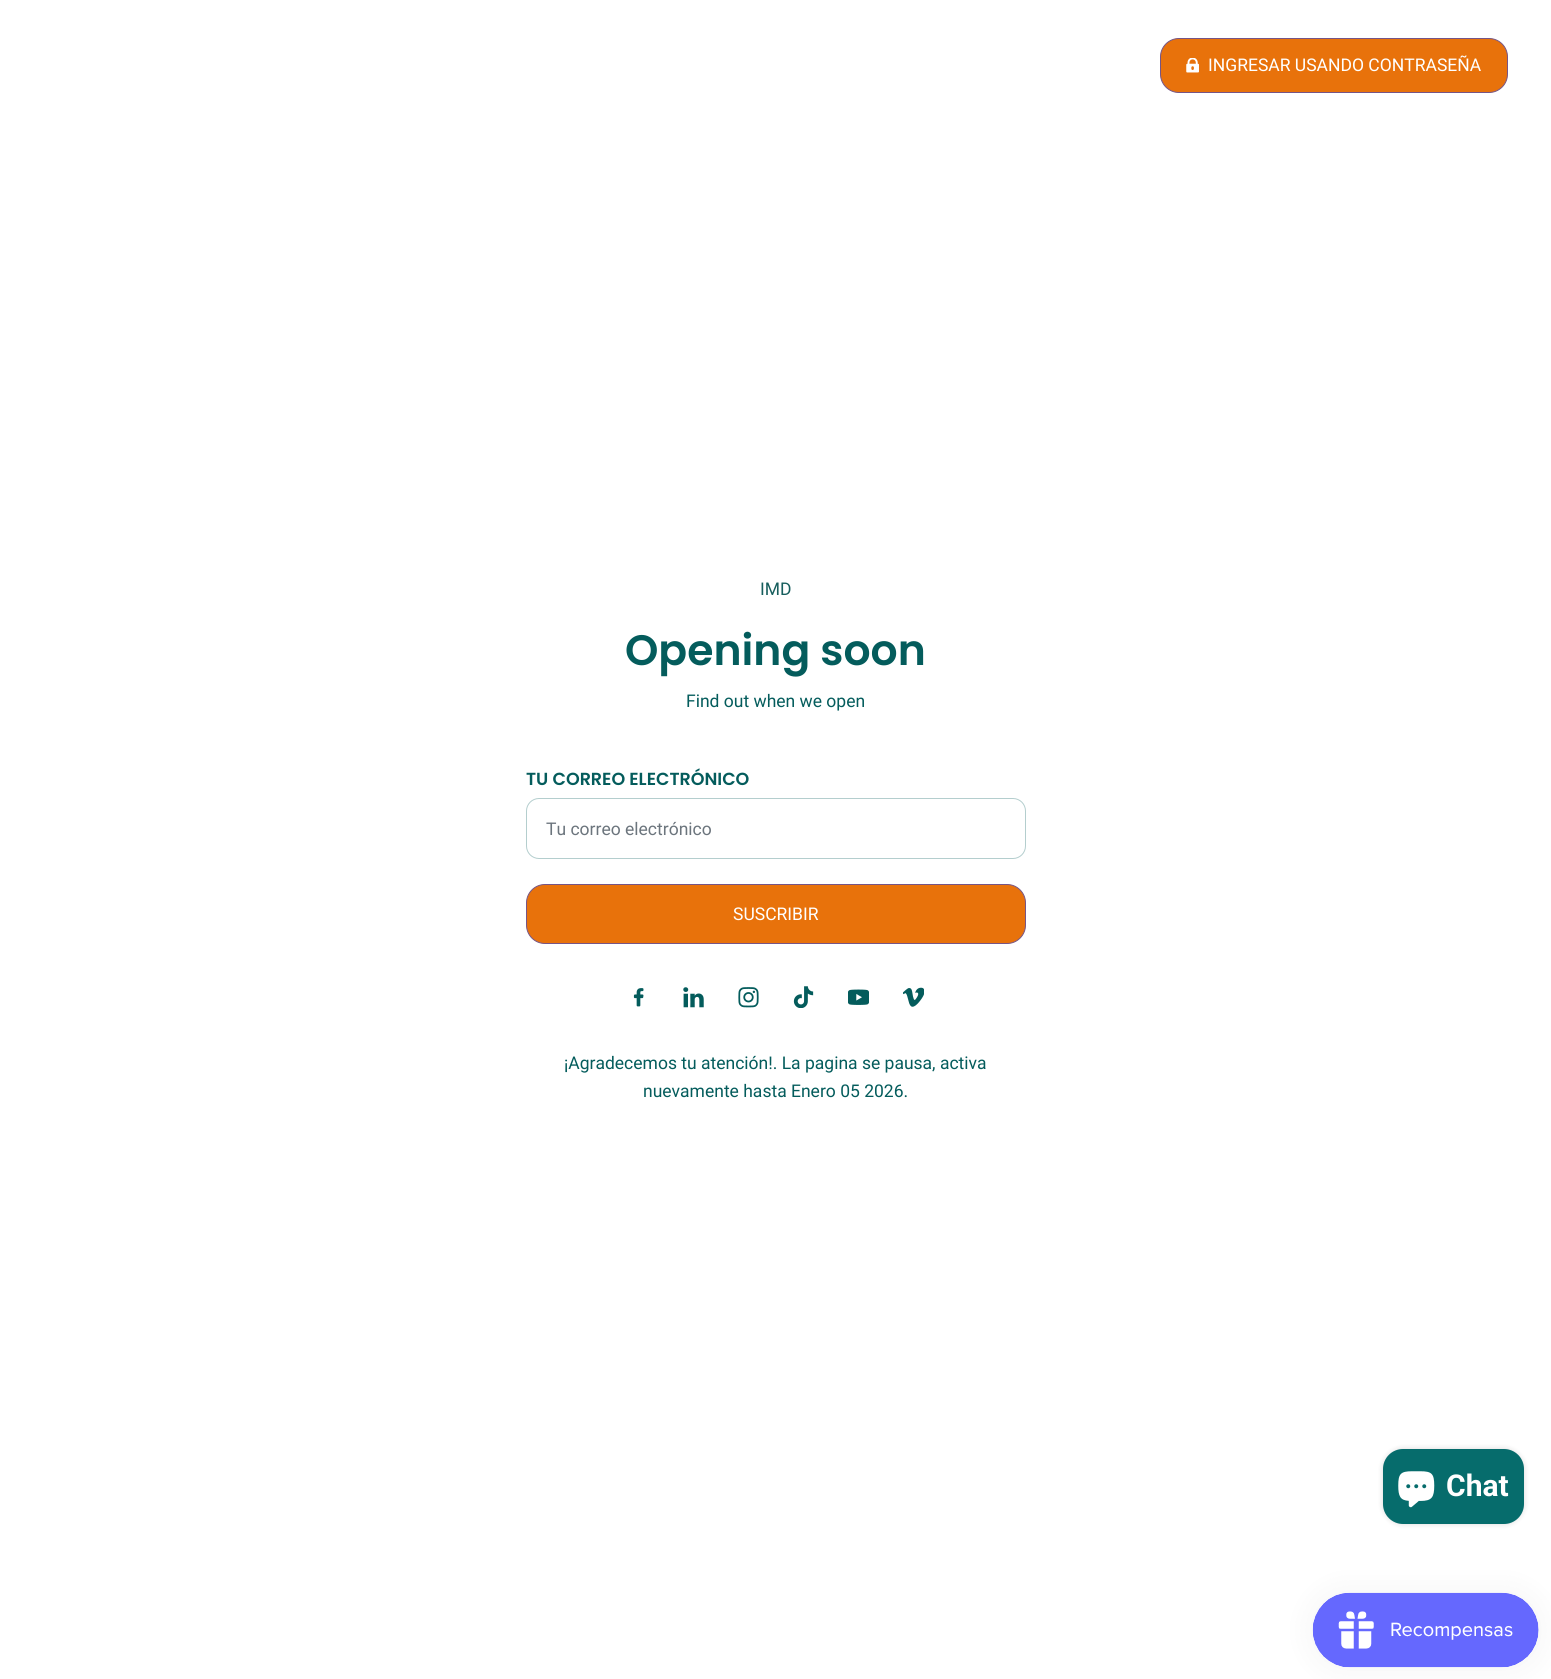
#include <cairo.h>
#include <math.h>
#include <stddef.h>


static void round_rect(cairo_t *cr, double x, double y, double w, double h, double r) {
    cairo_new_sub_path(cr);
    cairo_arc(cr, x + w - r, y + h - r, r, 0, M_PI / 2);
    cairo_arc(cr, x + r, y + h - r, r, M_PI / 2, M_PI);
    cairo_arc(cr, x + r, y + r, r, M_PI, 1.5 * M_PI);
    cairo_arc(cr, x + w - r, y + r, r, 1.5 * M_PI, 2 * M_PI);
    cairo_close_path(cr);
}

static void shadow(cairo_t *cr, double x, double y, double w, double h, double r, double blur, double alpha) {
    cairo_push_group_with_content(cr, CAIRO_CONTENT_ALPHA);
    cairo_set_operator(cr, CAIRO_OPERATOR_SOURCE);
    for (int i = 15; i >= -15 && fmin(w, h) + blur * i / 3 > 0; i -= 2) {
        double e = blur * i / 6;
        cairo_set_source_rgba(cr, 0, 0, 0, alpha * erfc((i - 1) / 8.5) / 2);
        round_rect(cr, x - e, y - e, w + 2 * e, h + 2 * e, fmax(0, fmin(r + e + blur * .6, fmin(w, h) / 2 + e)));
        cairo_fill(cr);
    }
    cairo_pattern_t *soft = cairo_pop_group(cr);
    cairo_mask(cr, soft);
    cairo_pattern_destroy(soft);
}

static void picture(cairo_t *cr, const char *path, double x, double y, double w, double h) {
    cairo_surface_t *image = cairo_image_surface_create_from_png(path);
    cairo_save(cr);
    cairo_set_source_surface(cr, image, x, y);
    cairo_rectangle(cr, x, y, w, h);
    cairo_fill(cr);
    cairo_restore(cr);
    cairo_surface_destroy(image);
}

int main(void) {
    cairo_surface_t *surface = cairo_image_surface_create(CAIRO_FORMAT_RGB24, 1551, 1679);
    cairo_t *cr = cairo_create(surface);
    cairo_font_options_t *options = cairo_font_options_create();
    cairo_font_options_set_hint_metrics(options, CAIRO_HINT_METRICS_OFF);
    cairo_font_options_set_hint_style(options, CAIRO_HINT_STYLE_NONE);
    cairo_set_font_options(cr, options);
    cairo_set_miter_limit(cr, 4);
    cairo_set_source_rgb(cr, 1, 1, 1);
    cairo_paint(cr);
    cairo_set_source_rgb(cr, 0.91, 0.447, 0.043);
    round_rect(cr, 1160.5, 38.5, 347, 54, 18.5);
    cairo_fill_preserve(cr);
    cairo_set_source_rgb(cr, 0.463, 0.333, 0.525);
    cairo_set_line_width(cr, 1);
    cairo_stroke(cr);
    picture(cr, "img1.png", 1186, 58, 13, 15);
    cairo_select_font_face(cr, "Roboto", CAIRO_FONT_SLANT_NORMAL, CAIRO_FONT_WEIGHT_NORMAL);
    cairo_set_font_size(cr, 17.5);
    cairo_set_source_rgb(cr, 1, 1, 1);
    cairo_move_to(cr, 1208, 71);
    cairo_show_text(cr, "INGRESAR USANDO CONTRASEÑA");
    cairo_set_source_rgb(cr, 0.09, 0.369, 0.365);
    cairo_move_to(cr, 760, 595);
    cairo_show_text(cr, "IMD");
    cairo_select_font_face(cr, "Poppins SemiBold", CAIRO_FONT_SLANT_NORMAL, CAIRO_FONT_WEIGHT_NORMAL);
    cairo_set_font_size(cr, 42.5);
    cairo_set_source_rgb(cr, 0.016, 0.361, 0.361);
    cairo_move_to(cr, 625, 665);
    cairo_show_text(cr, "Opening soon");
    cairo_select_font_face(cr, "Roboto", CAIRO_FONT_SLANT_NORMAL, CAIRO_FONT_WEIGHT_NORMAL);
    cairo_set_font_size(cr, 17.5);
    cairo_move_to(cr, 686, 707);
    cairo_show_text(cr, "Find out when we open");
    cairo_select_font_face(cr, "Poppins SemiBold", CAIRO_FONT_SLANT_NORMAL, CAIRO_FONT_WEIGHT_NORMAL);
    cairo_move_to(cr, 526, 785);
    cairo_show_text(cr, "TU CORREO ELECTRÓNICO");
    round_rect(cr, 526.5, 798.5, 499, 60, 12.5);
    cairo_set_source_rgb(cr, 0.706, 0.808, 0.808);
    cairo_stroke(cr);
    cairo_select_font_face(cr, "Roboto", CAIRO_FONT_SLANT_NORMAL, CAIRO_FONT_WEIGHT_NORMAL);
    cairo_set_source_rgb(cr, 0.424, 0.459, 0.49);
    cairo_move_to(cr, 546, 835);
    cairo_show_text(cr, "Tu correo electrónico");
    cairo_set_source_rgb(cr, 0.91, 0.447, 0.043);
    round_rect(cr, 526.5, 884.5, 499, 59, 18.5);
    cairo_fill_preserve(cr);
    cairo_set_source_rgb(cr, 0.463, 0.333, 0.525);
    cairo_stroke(cr);
    cairo_set_source_rgb(cr, 1, 1, 1);
    cairo_move_to(cr, 733, 920);
    cairo_show_text(cr, "SUSCRIBIR");
    picture(cr, "img2.png", 633, 988, 11, 19);
    picture(cr, "img3.png", 683, 987, 21, 21);
    picture(cr, "img4.png", 738, 987, 21, 21);
    picture(cr, "img5.png", 793, 986, 21, 22);
    picture(cr, "img6.png", 848, 989, 21, 16);
    picture(cr, "img7.png", 903, 987, 21, 20);
    cairo_set_source_rgb(cr, 0.016, 0.361, 0.361);
    cairo_move_to(cr, 564, 1069);
    cairo_show_text(cr, "¡Agradecemos tu atención!. La pagina se pausa, activa");
    cairo_move_to(cr, 643, 1097);
    cairo_show_text(cr, "nuevamente hasta Enero 05 2026.");
    cairo_set_source_rgb(cr, 0, 0, 0);
    shadow(cr, 1383, 1449, 141, 75, 20, 3, 0.15);
    cairo_set_source_rgb(cr, 0.027, 0.424, 0.424);
    round_rect(cr, 1383, 1449, 141, 75, 20);
    cairo_fill(cr);
    picture(cr, "img8.png", 1398, 1471, 37, 37);
    cairo_select_font_face(cr, "Roboto", CAIRO_FONT_SLANT_NORMAL, CAIRO_FONT_WEIGHT_BOLD);
    cairo_set_font_size(cr, 30);
    cairo_set_source_rgb(cr, 1, 1, 1);
    cairo_move_to(cr, 1446, 1496);
    cairo_show_text(cr, "Chat");
    cairo_set_source_rgb(cr, 0, 0, 0);
    shadow(cr, 1313, 1593, 226, 75, 37.5, 15.5, 0.05);
    picture(cr, "img9.png", 1312, 1592, 227, 76);
    cairo_surface_write_to_png(surface, "page.png");
    cairo_font_options_destroy(options);
    cairo_destroy(cr);
    cairo_surface_destroy(surface);
    return 0;
}
